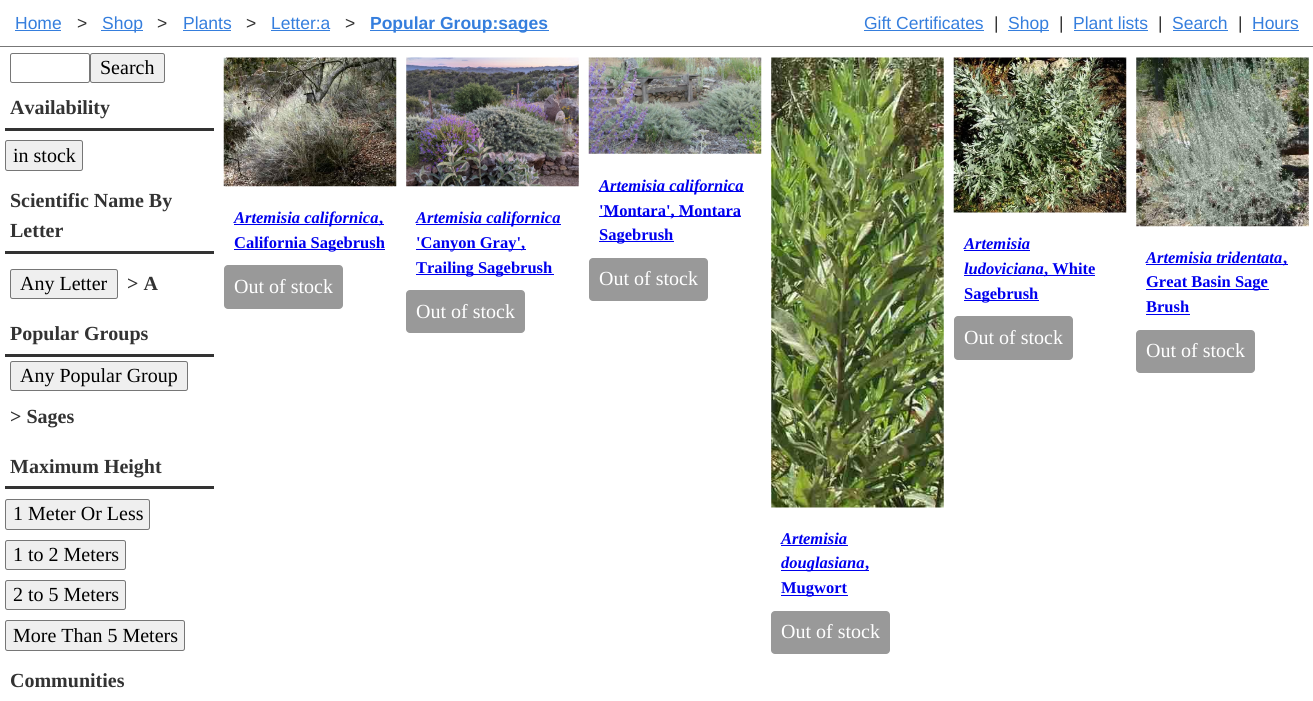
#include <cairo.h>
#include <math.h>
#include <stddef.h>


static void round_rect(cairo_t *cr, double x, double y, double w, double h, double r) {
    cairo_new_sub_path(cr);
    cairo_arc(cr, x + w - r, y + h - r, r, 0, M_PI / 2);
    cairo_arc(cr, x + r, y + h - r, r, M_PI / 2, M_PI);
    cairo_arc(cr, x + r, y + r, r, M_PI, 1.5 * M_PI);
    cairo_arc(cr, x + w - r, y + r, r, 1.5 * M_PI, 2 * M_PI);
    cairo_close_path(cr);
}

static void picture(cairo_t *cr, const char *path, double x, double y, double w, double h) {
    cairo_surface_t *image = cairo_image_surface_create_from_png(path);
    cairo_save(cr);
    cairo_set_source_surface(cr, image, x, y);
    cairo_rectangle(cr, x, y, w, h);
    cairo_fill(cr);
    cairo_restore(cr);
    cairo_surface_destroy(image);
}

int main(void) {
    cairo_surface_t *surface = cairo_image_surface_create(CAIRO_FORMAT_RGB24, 1313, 701);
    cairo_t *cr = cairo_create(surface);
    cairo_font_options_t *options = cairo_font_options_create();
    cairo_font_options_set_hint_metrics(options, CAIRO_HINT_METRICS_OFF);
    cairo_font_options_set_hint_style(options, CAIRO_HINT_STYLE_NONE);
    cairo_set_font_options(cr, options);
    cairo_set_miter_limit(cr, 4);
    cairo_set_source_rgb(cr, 1, 1, 1);
    cairo_paint(cr);
    cairo_set_source_rgb(cr, 0.467, 0.467, 0.467);
    cairo_rectangle(cr, 0, 46, 1313, 1);
    cairo_fill(cr);
    cairo_select_font_face(cr, "Liberation Sans", CAIRO_FONT_SLANT_NORMAL, CAIRO_FONT_WEIGHT_NORMAL);
    cairo_set_font_size(cr, 17.5);
    cairo_set_source_rgb(cr, 0.208, 0.494, 0.867);
    cairo_move_to(cr, 15, 29);
    cairo_show_text(cr, "Home");
    cairo_rectangle(cr, 15, 30, 46, 1);
    cairo_fill(cr);
    cairo_set_source_rgb(cr, 0.2, 0.2, 0.2);
    cairo_move_to(cr, 77, 29);
    cairo_show_text(cr, ">");
    cairo_set_source_rgb(cr, 0.208, 0.494, 0.867);
    cairo_rectangle(cr, 101, 30, 42, 1);
    cairo_fill(cr);
    cairo_move_to(cr, 102, 29);
    cairo_show_text(cr, "Shop");
    cairo_set_source_rgb(cr, 0.2, 0.2, 0.2);
    cairo_move_to(cr, 157, 29);
    cairo_show_text(cr, ">");
    cairo_set_source_rgb(cr, 0.208, 0.494, 0.867);
    cairo_move_to(cr, 183, 29);
    cairo_show_text(cr, "Plants");
    cairo_rectangle(cr, 183, 30, 48, 1);
    cairo_fill(cr);
    cairo_set_source_rgb(cr, 0.2, 0.2, 0.2);
    cairo_move_to(cr, 246, 29);
    cairo_show_text(cr, ">");
    cairo_set_source_rgb(cr, 0.208, 0.494, 0.867);
    cairo_move_to(cr, 271, 29);
    cairo_show_text(cr, "Letter:a");
    cairo_rectangle(cr, 271, 30, 59, 1);
    cairo_fill(cr);
    cairo_set_source_rgb(cr, 0.2, 0.2, 0.2);
    cairo_move_to(cr, 345, 29);
    cairo_show_text(cr, ">");
    cairo_set_source_rgb(cr, 0.208, 0.494, 0.867);
    cairo_rectangle(cr, 370, 30, 179, 1);
    cairo_fill(cr);
    cairo_select_font_face(cr, "Liberation Sans", CAIRO_FONT_SLANT_NORMAL, CAIRO_FONT_WEIGHT_BOLD);
    cairo_move_to(cr, 370, 29);
    cairo_show_text(cr, "Popular Group:sages");
    cairo_select_font_face(cr, "Liberation Sans", CAIRO_FONT_SLANT_NORMAL, CAIRO_FONT_WEIGHT_NORMAL);
    cairo_move_to(cr, 864, 29);
    cairo_show_text(cr, "Gift Certificates");
    cairo_rectangle(cr, 864, 30, 120, 1);
    cairo_fill(cr);
    cairo_set_source_rgb(cr, 0.2, 0.2, 0.2);
    cairo_move_to(cr, 994, 29);
    cairo_show_text(cr, "|");
    cairo_set_source_rgb(cr, 0.208, 0.494, 0.867);
    cairo_rectangle(cr, 1008, 30, 41, 1);
    cairo_fill(cr);
    cairo_move_to(cr, 1008, 29);
    cairo_show_text(cr, "Shop");
    cairo_set_source_rgb(cr, 0.2, 0.2, 0.2);
    cairo_move_to(cr, 1059, 29);
    cairo_show_text(cr, "|");
    cairo_set_source_rgb(cr, 0.208, 0.494, 0.867);
    cairo_move_to(cr, 1073, 29);
    cairo_show_text(cr, "Plant lists");
    cairo_rectangle(cr, 1074, 30, 74, 1);
    cairo_fill(cr);
    cairo_set_source_rgb(cr, 0.2, 0.2, 0.2);
    cairo_move_to(cr, 1158, 29);
    cairo_show_text(cr, "|");
    cairo_set_source_rgb(cr, 0.208, 0.494, 0.867);
    cairo_move_to(cr, 1172, 29);
    cairo_show_text(cr, "Search");
    cairo_rectangle(cr, 1173, 30, 55, 1);
    cairo_fill(cr);
    cairo_set_source_rgb(cr, 0.2, 0.2, 0.2);
    cairo_move_to(cr, 1238, 29);
    cairo_show_text(cr, "|");
    cairo_set_source_rgb(cr, 0.208, 0.494, 0.867);
    cairo_move_to(cr, 1252, 29);
    cairo_show_text(cr, "Hours");
    cairo_rectangle(cr, 1253, 30, 46, 1);
    cairo_fill(cr);
    round_rect(cr, 10.5, 53.5, 79, 29, 2);
    cairo_set_source_rgb(cr, 0.463, 0.463, 0.463);
    cairo_set_line_width(cr, 1);
    cairo_stroke(cr);
    cairo_set_source_rgb(cr, 0.937, 0.937, 0.937);
    round_rect(cr, 90.5, 53.5, 74, 29, 2);
    cairo_fill_preserve(cr);
    cairo_set_source_rgb(cr, 0.463, 0.463, 0.463);
    cairo_stroke(cr);
    cairo_select_font_face(cr, "Liberation Serif", CAIRO_FONT_SLANT_NORMAL, CAIRO_FONT_WEIGHT_NORMAL);
    cairo_set_font_size(cr, 20);
    cairo_set_source_rgb(cr, 0, 0, 0);
    cairo_move_to(cr, 100, 74);
    cairo_show_text(cr, "Search");
    cairo_set_source_rgb(cr, 0.2, 0.2, 0.2);
    cairo_rectangle(cr, 5, 128, 209, 3);
    cairo_fill(cr);
    cairo_select_font_face(cr, "Liberation Serif", CAIRO_FONT_SLANT_NORMAL, CAIRO_FONT_WEIGHT_BOLD);
    cairo_move_to(cr, 10, 114);
    cairo_show_text(cr, "Availability");
    cairo_set_source_rgb(cr, 0.937, 0.937, 0.937);
    round_rect(cr, 5.5, 140.5, 77, 30, 2);
    cairo_fill_preserve(cr);
    cairo_set_source_rgb(cr, 0.463, 0.463, 0.463);
    cairo_stroke(cr);
    cairo_select_font_face(cr, "Liberation Serif", CAIRO_FONT_SLANT_NORMAL, CAIRO_FONT_WEIGHT_NORMAL);
    cairo_set_source_rgb(cr, 0, 0, 0);
    cairo_move_to(cr, 13, 162);
    cairo_show_text(cr, "in stock");
    cairo_set_source_rgb(cr, 0.2, 0.2, 0.2);
    cairo_rectangle(cr, 5, 251, 209, 3);
    cairo_fill(cr);
    cairo_select_font_face(cr, "Liberation Serif", CAIRO_FONT_SLANT_NORMAL, CAIRO_FONT_WEIGHT_BOLD);
    cairo_move_to(cr, 10, 207);
    cairo_show_text(cr, "Scientific Name By");
    cairo_move_to(cr, 10, 237);
    cairo_show_text(cr, "Letter");
    cairo_set_source_rgb(cr, 0.937, 0.937, 0.937);
    round_rect(cr, 10.5, 269.5, 107, 29, 2);
    cairo_fill_preserve(cr);
    cairo_set_source_rgb(cr, 0.463, 0.463, 0.463);
    cairo_stroke(cr);
    cairo_select_font_face(cr, "Liberation Serif", CAIRO_FONT_SLANT_NORMAL, CAIRO_FONT_WEIGHT_NORMAL);
    cairo_set_source_rgb(cr, 0, 0, 0);
    cairo_move_to(cr, 20, 290);
    cairo_show_text(cr, "Any Letter");
    cairo_select_font_face(cr, "Liberation Serif", CAIRO_FONT_SLANT_NORMAL, CAIRO_FONT_WEIGHT_BOLD);
    cairo_set_source_rgb(cr, 0.2, 0.2, 0.2);
    cairo_move_to(cr, 127, 290);
    cairo_show_text(cr, "> A");
    cairo_rectangle(cr, 5, 354, 209, 3);
    cairo_fill(cr);
    cairo_move_to(cr, 10, 340);
    cairo_show_text(cr, "Popular Groups");
    cairo_set_source_rgb(cr, 0.937, 0.937, 0.937);
    round_rect(cr, 10.5, 361.5, 177, 29, 2);
    cairo_fill_preserve(cr);
    cairo_set_source_rgb(cr, 0.463, 0.463, 0.463);
    cairo_stroke(cr);
    cairo_select_font_face(cr, "Liberation Serif", CAIRO_FONT_SLANT_NORMAL, CAIRO_FONT_WEIGHT_NORMAL);
    cairo_set_source_rgb(cr, 0, 0, 0);
    cairo_move_to(cr, 20, 382);
    cairo_show_text(cr, "Any Popular Group");
    cairo_select_font_face(cr, "Liberation Serif", CAIRO_FONT_SLANT_NORMAL, CAIRO_FONT_WEIGHT_BOLD);
    cairo_set_source_rgb(cr, 0.2, 0.2, 0.2);
    cairo_move_to(cr, 10, 423);
    cairo_show_text(cr, "> Sages");
    cairo_rectangle(cr, 5, 486, 209, 3);
    cairo_fill(cr);
    cairo_move_to(cr, 10, 473);
    cairo_show_text(cr, "Maximum Height");
    cairo_set_source_rgb(cr, 0.937, 0.937, 0.937);
    round_rect(cr, 5.5, 499.5, 144, 30, 2);
    cairo_fill_preserve(cr);
    cairo_set_source_rgb(cr, 0.463, 0.463, 0.463);
    cairo_stroke(cr);
    cairo_select_font_face(cr, "Liberation Serif", CAIRO_FONT_SLANT_NORMAL, CAIRO_FONT_WEIGHT_NORMAL);
    cairo_set_source_rgb(cr, 0, 0, 0);
    cairo_move_to(cr, 13, 520);
    cairo_show_text(cr, "1 Meter Or Less");
    cairo_set_source_rgb(cr, 0.937, 0.937, 0.937);
    round_rect(cr, 5.5, 540.5, 120, 29, 2);
    cairo_fill_preserve(cr);
    cairo_set_source_rgb(cr, 0.463, 0.463, 0.463);
    cairo_stroke(cr);
    cairo_set_source_rgb(cr, 0, 0, 0);
    cairo_move_to(cr, 13, 561);
    cairo_show_text(cr, "1 to 2 Meters");
    cairo_set_source_rgb(cr, 0.937, 0.937, 0.937);
    round_rect(cr, 5.5, 580.5, 120, 29, 2);
    cairo_fill_preserve(cr);
    cairo_set_source_rgb(cr, 0.463, 0.463, 0.463);
    cairo_stroke(cr);
    cairo_set_source_rgb(cr, 0, 0, 0);
    cairo_move_to(cr, 13, 601);
    cairo_show_text(cr, "2 to 5 Meters");
    cairo_set_source_rgb(cr, 0.937, 0.937, 0.937);
    round_rect(cr, 5.5, 620.5, 179, 30, 2);
    cairo_fill_preserve(cr);
    cairo_set_source_rgb(cr, 0.463, 0.463, 0.463);
    cairo_stroke(cr);
    cairo_set_source_rgb(cr, 0, 0, 0);
    cairo_move_to(cr, 13, 642);
    cairo_show_text(cr, "More Than 5 Meters");
    cairo_select_font_face(cr, "Liberation Serif", CAIRO_FONT_SLANT_NORMAL, CAIRO_FONT_WEIGHT_BOLD);
    cairo_set_source_rgb(cr, 0.2, 0.2, 0.2);
    cairo_move_to(cr, 10, 687);
    cairo_show_text(cr, "Communities");
    picture(cr, "img1.png", 223, 57, 174, 130);
    cairo_set_source_rgb(cr, 0, 0, 0.933);
    cairo_rectangle(cr, 234, 224, 150, 1);
    cairo_fill(cr);
    cairo_select_font_face(cr, "Liberation Serif", CAIRO_FONT_SLANT_ITALIC, CAIRO_FONT_WEIGHT_BOLD);
    cairo_set_font_size(cr, 16.5);
    cairo_move_to(cr, 234, 223);
    cairo_show_text(cr, "Artemisia californica");
    cairo_select_font_face(cr, "Liberation Serif", CAIRO_FONT_SLANT_NORMAL, CAIRO_FONT_WEIGHT_BOLD);
    cairo_move_to(cr, 379, 223);
    cairo_show_text(cr, ",");
    cairo_rectangle(cr, 234, 249, 151, 1);
    cairo_fill(cr);
    cairo_move_to(cr, 234, 248);
    cairo_show_text(cr, "California Sagebrush");
    cairo_set_source_rgb(cr, 0.6, 0.6, 0.6);
    round_rect(cr, 224, 265, 119, 44, 4);
    cairo_fill(cr);
    cairo_select_font_face(cr, "Liberation Serif", CAIRO_FONT_SLANT_NORMAL, CAIRO_FONT_WEIGHT_NORMAL);
    cairo_set_font_size(cr, 20);
    cairo_set_source_rgb(cr, 1, 1, 1);
    cairo_move_to(cr, 234, 293);
    cairo_show_text(cr, "Out of stock");
    picture(cr, "img2.png", 406, 57, 173, 130);
    cairo_set_source_rgb(cr, 0, 0, 0.933);
    cairo_rectangle(cr, 416, 224, 145, 1);
    cairo_fill(cr);
    cairo_select_font_face(cr, "Liberation Serif", CAIRO_FONT_SLANT_ITALIC, CAIRO_FONT_WEIGHT_BOLD);
    cairo_set_font_size(cr, 16.5);
    cairo_move_to(cr, 416, 223);
    cairo_show_text(cr, "Artemisia californica");
    cairo_rectangle(cr, 416, 249, 110, 1);
    cairo_fill(cr);
    cairo_select_font_face(cr, "Liberation Serif", CAIRO_FONT_SLANT_NORMAL, CAIRO_FONT_WEIGHT_BOLD);
    cairo_move_to(cr, 416, 248);
    cairo_show_text(cr, "'Canyon Gray',");
    cairo_rectangle(cr, 416, 274, 138, 1);
    cairo_fill(cr);
    cairo_move_to(cr, 416, 273);
    cairo_show_text(cr, "Trailing Sagebrush");
    cairo_set_source_rgb(cr, 0.6, 0.6, 0.6);
    round_rect(cr, 406, 290, 119, 43, 4);
    cairo_fill(cr);
    cairo_select_font_face(cr, "Liberation Serif", CAIRO_FONT_SLANT_NORMAL, CAIRO_FONT_WEIGHT_NORMAL);
    cairo_set_font_size(cr, 20);
    cairo_set_source_rgb(cr, 1, 1, 1);
    cairo_move_to(cr, 416, 318);
    cairo_show_text(cr, "Out of stock");
    picture(cr, "img3.png", 588, 57, 174, 97);
    cairo_set_source_rgb(cr, 0, 0, 0.933);
    cairo_rectangle(cr, 599, 191, 145, 1);
    cairo_fill(cr);
    cairo_select_font_face(cr, "Liberation Serif", CAIRO_FONT_SLANT_ITALIC, CAIRO_FONT_WEIGHT_BOLD);
    cairo_set_font_size(cr, 16.5);
    cairo_move_to(cr, 599, 191);
    cairo_show_text(cr, "Artemisia californica");
    cairo_rectangle(cr, 599, 216, 142, 1);
    cairo_fill(cr);
    cairo_select_font_face(cr, "Liberation Serif", CAIRO_FONT_SLANT_NORMAL, CAIRO_FONT_WEIGHT_BOLD);
    cairo_move_to(cr, 599, 216);
    cairo_show_text(cr, "'Montara', Montara");
    cairo_rectangle(cr, 599, 241, 75, 1);
    cairo_fill(cr);
    cairo_move_to(cr, 599, 240);
    cairo_show_text(cr, "Sagebrush");
    cairo_set_source_rgb(cr, 0.6, 0.6, 0.6);
    round_rect(cr, 589, 258, 119, 43, 4);
    cairo_fill(cr);
    cairo_select_font_face(cr, "Liberation Serif", CAIRO_FONT_SLANT_NORMAL, CAIRO_FONT_WEIGHT_NORMAL);
    cairo_set_font_size(cr, 20);
    cairo_set_source_rgb(cr, 1, 1, 1);
    cairo_move_to(cr, 599, 285);
    cairo_show_text(cr, "Out of stock");
    picture(cr, "img4.png", 953, 57, 174, 156);
    cairo_select_font_face(cr, "Liberation Serif", CAIRO_FONT_SLANT_ITALIC, CAIRO_FONT_WEIGHT_BOLD);
    cairo_set_font_size(cr, 16.5);
    cairo_set_source_rgb(cr, 0, 0, 0.933);
    cairo_move_to(cr, 964, 249);
    cairo_show_text(cr, "Artemisia");
    cairo_rectangle(cr, 964, 250, 66, 1);
    cairo_fill(cr);
    cairo_move_to(cr, 964, 274);
    cairo_show_text(cr, "ludoviciana");
    cairo_rectangle(cr, 964, 275, 131, 1);
    cairo_fill(cr);
    cairo_select_font_face(cr, "Liberation Serif", CAIRO_FONT_SLANT_NORMAL, CAIRO_FONT_WEIGHT_BOLD);
    cairo_move_to(cr, 1044, 274);
    cairo_show_text(cr, ", White");
    cairo_rectangle(cr, 964, 300, 75, 1);
    cairo_fill(cr);
    cairo_move_to(cr, 964, 299);
    cairo_show_text(cr, "Sagebrush");
    cairo_set_source_rgb(cr, 0.6, 0.6, 0.6);
    round_rect(cr, 954, 316, 119, 44, 4);
    cairo_fill(cr);
    cairo_select_font_face(cr, "Liberation Serif", CAIRO_FONT_SLANT_NORMAL, CAIRO_FONT_WEIGHT_NORMAL);
    cairo_set_font_size(cr, 20);
    cairo_set_source_rgb(cr, 1, 1, 1);
    cairo_move_to(cr, 964, 344);
    cairo_show_text(cr, "Out of stock");
    picture(cr, "img5.png", 1136, 57, 173, 170);
    cairo_select_font_face(cr, "Liberation Serif", CAIRO_FONT_SLANT_ITALIC, CAIRO_FONT_WEIGHT_BOLD);
    cairo_set_font_size(cr, 16.5);
    cairo_set_source_rgb(cr, 0, 0, 0.933);
    cairo_move_to(cr, 1146, 263);
    cairo_show_text(cr, "Artemisia tridentata");
    cairo_rectangle(cr, 1146, 264, 142, 1);
    cairo_fill(cr);
    cairo_select_font_face(cr, "Liberation Serif", CAIRO_FONT_SLANT_NORMAL, CAIRO_FONT_WEIGHT_BOLD);
    cairo_move_to(cr, 1283, 263);
    cairo_show_text(cr, ",");
    cairo_rectangle(cr, 1146, 289, 123, 1);
    cairo_fill(cr);
    cairo_move_to(cr, 1146, 287);
    cairo_show_text(cr, "Great Basin Sage");
    cairo_move_to(cr, 1146, 312);
    cairo_show_text(cr, "Brush");
    cairo_rectangle(cr, 1146, 314, 44, 1);
    cairo_fill(cr);
    cairo_set_source_rgb(cr, 0.6, 0.6, 0.6);
    round_rect(cr, 1136, 330, 119, 43, 4);
    cairo_fill(cr);
    cairo_select_font_face(cr, "Liberation Serif", CAIRO_FONT_SLANT_NORMAL, CAIRO_FONT_WEIGHT_NORMAL);
    cairo_set_font_size(cr, 20);
    cairo_set_source_rgb(cr, 1, 1, 1);
    cairo_move_to(cr, 1146, 357);
    cairo_show_text(cr, "Out of stock");
    picture(cr, "img6.png", 771, 57, 173, 451);
    cairo_select_font_face(cr, "Liberation Serif", CAIRO_FONT_SLANT_ITALIC, CAIRO_FONT_WEIGHT_BOLD);
    cairo_set_font_size(cr, 16.5);
    cairo_set_source_rgb(cr, 0, 0, 0.933);
    cairo_move_to(cr, 781, 544);
    cairo_show_text(cr, "Artemisia");
    cairo_rectangle(cr, 781, 545, 67, 1);
    cairo_fill(cr);
    cairo_rectangle(cr, 781, 570, 88, 1);
    cairo_fill(cr);
    cairo_move_to(cr, 781, 568);
    cairo_show_text(cr, "douglasiana");
    cairo_select_font_face(cr, "Liberation Serif", CAIRO_FONT_SLANT_NORMAL, CAIRO_FONT_WEIGHT_BOLD);
    cairo_move_to(cr, 865, 568);
    cairo_show_text(cr, ",");
    cairo_rectangle(cr, 781, 595, 67, 1);
    cairo_fill(cr);
    cairo_move_to(cr, 781, 593);
    cairo_show_text(cr, "Mugwort");
    cairo_set_source_rgb(cr, 0.6, 0.6, 0.6);
    round_rect(cr, 771, 611, 119, 43, 4);
    cairo_fill(cr);
    cairo_select_font_face(cr, "Liberation Serif", CAIRO_FONT_SLANT_NORMAL, CAIRO_FONT_WEIGHT_NORMAL);
    cairo_set_font_size(cr, 20);
    cairo_set_source_rgb(cr, 1, 1, 1);
    cairo_move_to(cr, 781, 638);
    cairo_show_text(cr, "Out of stock");
    cairo_surface_write_to_png(surface, "page.png");
    cairo_font_options_destroy(options);
    cairo_destroy(cr);
    cairo_surface_destroy(surface);
    return 0;
}
